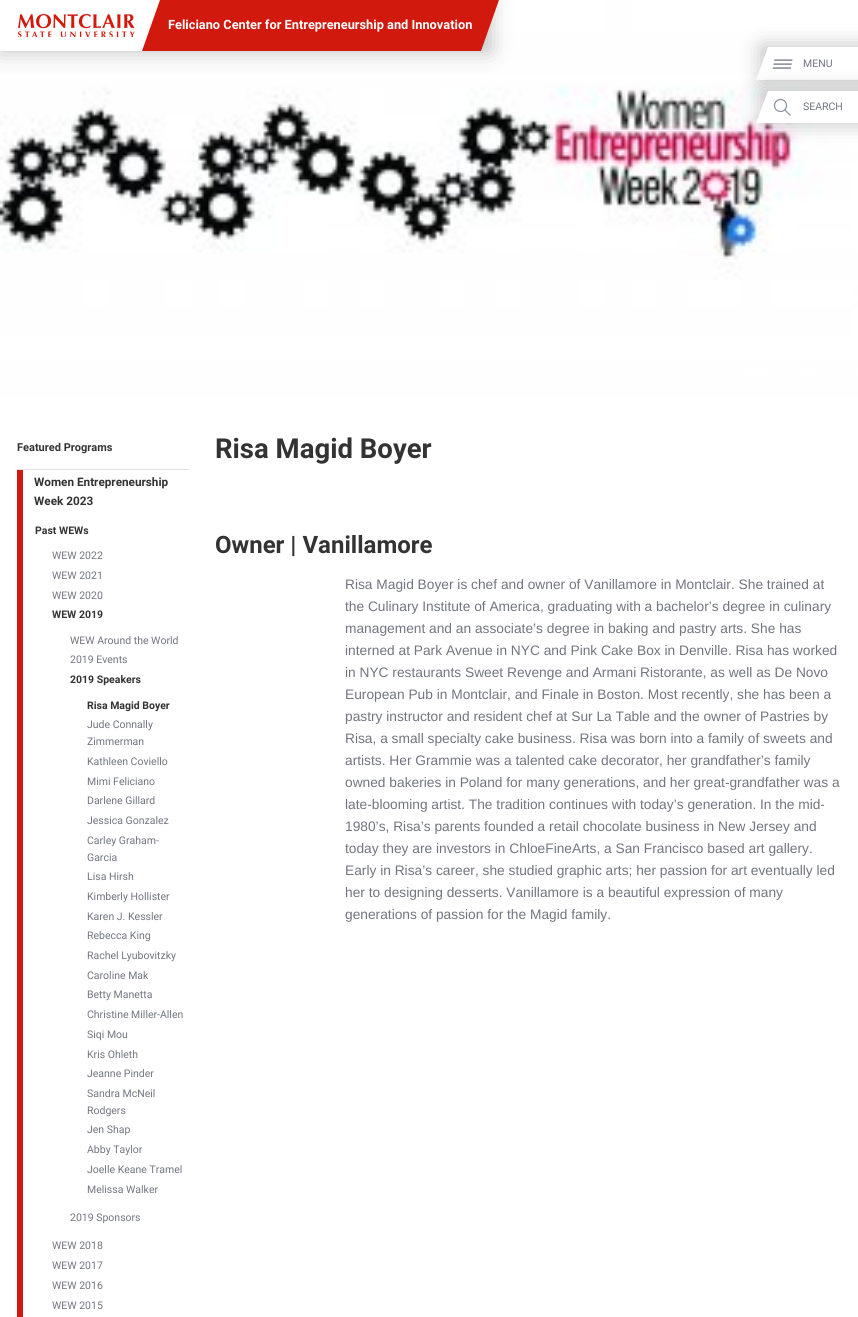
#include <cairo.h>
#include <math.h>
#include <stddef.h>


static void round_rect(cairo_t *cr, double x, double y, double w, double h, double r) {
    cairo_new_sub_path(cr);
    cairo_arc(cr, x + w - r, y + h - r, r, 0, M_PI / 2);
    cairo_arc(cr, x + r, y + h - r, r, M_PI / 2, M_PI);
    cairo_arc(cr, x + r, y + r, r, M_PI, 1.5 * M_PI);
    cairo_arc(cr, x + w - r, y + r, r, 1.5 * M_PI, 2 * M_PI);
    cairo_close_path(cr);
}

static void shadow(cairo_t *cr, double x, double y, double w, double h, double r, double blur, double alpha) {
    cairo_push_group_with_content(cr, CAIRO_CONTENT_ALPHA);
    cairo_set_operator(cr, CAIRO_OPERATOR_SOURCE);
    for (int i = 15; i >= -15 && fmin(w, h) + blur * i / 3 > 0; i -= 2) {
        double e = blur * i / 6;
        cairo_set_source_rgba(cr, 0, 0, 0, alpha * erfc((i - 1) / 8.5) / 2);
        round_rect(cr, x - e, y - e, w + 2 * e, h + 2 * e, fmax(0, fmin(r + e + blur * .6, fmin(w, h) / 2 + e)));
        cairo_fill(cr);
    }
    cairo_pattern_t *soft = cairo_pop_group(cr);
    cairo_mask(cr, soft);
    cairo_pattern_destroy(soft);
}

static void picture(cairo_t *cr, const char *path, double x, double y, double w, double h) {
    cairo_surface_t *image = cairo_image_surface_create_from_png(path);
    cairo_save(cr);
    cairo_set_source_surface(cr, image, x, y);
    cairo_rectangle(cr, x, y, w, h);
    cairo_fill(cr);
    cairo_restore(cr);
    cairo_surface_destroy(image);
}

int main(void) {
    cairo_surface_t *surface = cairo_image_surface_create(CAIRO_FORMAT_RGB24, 858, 1317);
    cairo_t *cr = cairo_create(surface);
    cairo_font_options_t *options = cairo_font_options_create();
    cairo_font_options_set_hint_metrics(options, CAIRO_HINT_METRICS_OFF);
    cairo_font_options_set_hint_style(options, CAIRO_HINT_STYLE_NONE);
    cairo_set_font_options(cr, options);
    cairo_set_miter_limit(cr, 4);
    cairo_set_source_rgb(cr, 1, 1, 1);
    cairo_paint(cr);
    picture(cr, "img3.png", 0, 0, 858, 398);
    cairo_set_source_rgb(cr, 0, 0, 0);
    shadow(cr, 0, 0, 490, 51, 0, 11, 0.25);
    cairo_set_source_rgb(cr, 1, 1, 1);
    cairo_new_path(cr);
    cairo_move_to(cr, -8, 0);
    cairo_line_to(cr, 161, 0);
    cairo_line_to(cr, 143, 51);
    cairo_line_to(cr, -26, 51);
    cairo_close_path(cr);
    cairo_fill(cr);
    picture(cr, "img1.png", 18, 14, 117, 23);
    cairo_set_source_rgb(cr, 0.82, 0.098, 0.051);
    cairo_new_path(cr);
    cairo_move_to(cr, 160, 0);
    cairo_line_to(cr, 499, 0);
    cairo_line_to(cr, 481, 51);
    cairo_line_to(cr, 142, 51);
    cairo_close_path(cr);
    cairo_fill(cr);
    cairo_select_font_face(cr, "Roboto", CAIRO_FONT_SLANT_NORMAL, CAIRO_FONT_WEIGHT_BOLD);
    cairo_set_font_size(cr, 12.8);
    cairo_set_source_rgb(cr, 1, 1, 1);
    cairo_move_to(cr, 168, 29);
    cairo_show_text(cr, "Feliciano Center for Entrepreneurship and Innovation");
    cairo_set_source_rgb(cr, 0, 0, 0);
    shadow(cr, 762, 47, 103, 33, 0, 10.5, 0.25);
    cairo_set_source_rgb(cr, 1, 1, 1);
    cairo_new_path(cr);
    cairo_move_to(cr, 768, 47);
    cairo_line_to(cr, 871, 47);
    cairo_line_to(cr, 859, 80);
    cairo_line_to(cr, 756, 80);
    cairo_close_path(cr);
    cairo_fill(cr);
    picture(cr, "img2.png", 772, 59, 21, 10);
    cairo_select_font_face(cr, "Roboto", CAIRO_FONT_SLANT_NORMAL, CAIRO_FONT_WEIGHT_NORMAL);
    cairo_set_font_size(cr, 10.5);
    cairo_set_source_rgb(cr, 0.447, 0.459, 0.502);
    cairo_move_to(cr, 803, 67);
    cairo_show_text(cr, "MENU");
    cairo_set_source_rgb(cr, 0, 0, 0);
    shadow(cr, 762, 91, 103, 32, 0, 10.5, 0.25);
    cairo_set_source_rgb(cr, 1, 1, 1);
    cairo_new_path(cr);
    cairo_move_to(cr, 768, 91);
    cairo_line_to(cr, 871, 91);
    cairo_line_to(cr, 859, 123);
    cairo_line_to(cr, 756, 123);
    cairo_close_path(cr);
    cairo_fill(cr);
    cairo_arc(cr, 780.5, 105.5, 6, 0, 2 * M_PI);
    cairo_set_source_rgb(cr, 0.545, 0.561, 0.612);
    cairo_set_line_width(cr, 1.2);
    cairo_stroke(cr);
    cairo_new_path(cr);
    cairo_move_to(cr, 790.5, 115.5);
    cairo_line_to(cr, 784.5, 109.5);
    cairo_stroke(cr);
    cairo_set_source_rgb(cr, 0.447, 0.459, 0.502);
    cairo_move_to(cr, 803, 110);
    cairo_show_text(cr, "SEARCH");
    cairo_select_font_face(cr, "Roboto", CAIRO_FONT_SLANT_NORMAL, CAIRO_FONT_WEIGHT_BOLD);
    cairo_set_font_size(cr, 11);
    cairo_set_source_rgb(cr, 0.2, 0.2, 0.2);
    cairo_move_to(cr, 17, 451);
    cairo_show_text(cr, "Featured Programs");
    cairo_set_source_rgb(cr, 0.867, 0.867, 0.886);
    cairo_rectangle(cr, 17, 469, 172, 1);
    cairo_fill(cr);
    cairo_set_source_rgb(cr, 0.82, 0.098, 0.051);
    cairo_rectangle(cr, 17, 470, 6, 847);
    cairo_fill(cr);
    cairo_set_font_size(cr, 11.75);
    cairo_set_source_rgb(cr, 0.2, 0.2, 0.2);
    cairo_move_to(cr, 34, 486);
    cairo_show_text(cr, "Women Entrepreneurship");
    cairo_move_to(cr, 34, 505);
    cairo_show_text(cr, "Week 2023");
    cairo_set_font_size(cr, 10.5);
    cairo_move_to(cr, 35, 534);
    cairo_show_text(cr, "Past WEWs");
    cairo_select_font_face(cr, "Roboto", CAIRO_FONT_SLANT_NORMAL, CAIRO_FONT_WEIGHT_NORMAL);
    cairo_set_source_rgb(cr, 0.447, 0.459, 0.502);
    cairo_move_to(cr, 52, 559);
    cairo_show_text(cr, "WEW 2022");
    cairo_move_to(cr, 52, 579);
    cairo_show_text(cr, "WEW 2021");
    cairo_move_to(cr, 52, 599);
    cairo_show_text(cr, "WEW 2020");
    cairo_select_font_face(cr, "Roboto", CAIRO_FONT_SLANT_NORMAL, CAIRO_FONT_WEIGHT_BOLD);
    cairo_set_source_rgb(cr, 0.2, 0.2, 0.2);
    cairo_move_to(cr, 52, 618);
    cairo_show_text(cr, "WEW 2019");
    cairo_select_font_face(cr, "Roboto", CAIRO_FONT_SLANT_NORMAL, CAIRO_FONT_WEIGHT_NORMAL);
    cairo_set_source_rgb(cr, 0.447, 0.459, 0.502);
    cairo_move_to(cr, 70, 644);
    cairo_show_text(cr, "WEW Around the World");
    cairo_move_to(cr, 70, 663);
    cairo_show_text(cr, "2019 Events");
    cairo_select_font_face(cr, "Roboto", CAIRO_FONT_SLANT_NORMAL, CAIRO_FONT_WEIGHT_BOLD);
    cairo_set_source_rgb(cr, 0.2, 0.2, 0.2);
    cairo_move_to(cr, 70, 683);
    cairo_show_text(cr, "2019 Speakers");
    cairo_move_to(cr, 87, 709);
    cairo_show_text(cr, "Risa Magid Boyer");
    cairo_select_font_face(cr, "Roboto", CAIRO_FONT_SLANT_NORMAL, CAIRO_FONT_WEIGHT_NORMAL);
    cairo_set_source_rgb(cr, 0.447, 0.459, 0.502);
    cairo_move_to(cr, 87, 728);
    cairo_show_text(cr, "Jude Connally");
    cairo_move_to(cr, 87, 745);
    cairo_show_text(cr, "Zimmerman");
    cairo_move_to(cr, 87, 765);
    cairo_show_text(cr, "Kathleen Coviello");
    cairo_move_to(cr, 87, 785);
    cairo_show_text(cr, "Mimi Feliciano");
    cairo_move_to(cr, 87, 804);
    cairo_show_text(cr, "Darlene Gillard");
    cairo_move_to(cr, 87, 824);
    cairo_show_text(cr, "Jessica Gonzalez");
    cairo_move_to(cr, 87, 844);
    cairo_show_text(cr, "Carley Graham-");
    cairo_move_to(cr, 87, 861);
    cairo_show_text(cr, "Garcia");
    cairo_move_to(cr, 87, 880);
    cairo_show_text(cr, "Lisa Hirsh");
    cairo_move_to(cr, 87, 900);
    cairo_show_text(cr, "Kimberly Hollister");
    cairo_move_to(cr, 87, 920);
    cairo_show_text(cr, "Karen J. Kessler");
    cairo_move_to(cr, 87, 939);
    cairo_show_text(cr, "Rebecca King");
    cairo_move_to(cr, 87, 959);
    cairo_show_text(cr, "Rachel Lyubovitzky");
    cairo_move_to(cr, 87, 979);
    cairo_show_text(cr, "Caroline Mak");
    cairo_move_to(cr, 87, 998);
    cairo_show_text(cr, "Betty Manetta");
    cairo_move_to(cr, 87, 1018);
    cairo_show_text(cr, "Christine Miller-Allen");
    cairo_move_to(cr, 87, 1038);
    cairo_show_text(cr, "Siqi Mou");
    cairo_move_to(cr, 87, 1058);
    cairo_show_text(cr, "Kris Ohleth");
    cairo_move_to(cr, 87, 1077);
    cairo_show_text(cr, "Jeanne Pinder");
    cairo_move_to(cr, 87, 1097);
    cairo_show_text(cr, "Sandra McNeil");
    cairo_move_to(cr, 87, 1114);
    cairo_show_text(cr, "Rodgers");
    cairo_move_to(cr, 87, 1133);
    cairo_show_text(cr, "Jen Shap");
    cairo_move_to(cr, 87, 1153);
    cairo_show_text(cr, "Abby Taylor");
    cairo_move_to(cr, 87, 1173);
    cairo_show_text(cr, "Joelle Keane Tramel");
    cairo_move_to(cr, 87, 1193);
    cairo_show_text(cr, "Melissa Walker");
    cairo_move_to(cr, 70, 1221);
    cairo_show_text(cr, "2019 Sponsors");
    cairo_move_to(cr, 52, 1249);
    cairo_show_text(cr, "WEW 2018");
    cairo_move_to(cr, 52, 1269);
    cairo_show_text(cr, "WEW 2017");
    cairo_move_to(cr, 52, 1289);
    cairo_show_text(cr, "WEW 2016");
    cairo_move_to(cr, 52, 1309);
    cairo_show_text(cr, "WEW 2015");
    cairo_select_font_face(cr, "Roboto", CAIRO_FONT_SLANT_NORMAL, CAIRO_FONT_WEIGHT_BOLD);
    cairo_set_font_size(cr, 27.5);
    cairo_set_source_rgb(cr, 0.2, 0.2, 0.2);
    cairo_move_to(cr, 215, 458);
    cairo_show_text(cr, "Risa Magid Boyer");
    cairo_set_font_size(cr, 24);
    cairo_move_to(cr, 215, 553);
    cairo_show_text(cr, "Owner | Vanillamore");
    cairo_select_font_face(cr, "Liberation Sans", CAIRO_FONT_SLANT_NORMAL, CAIRO_FONT_WEIGHT_NORMAL);
    cairo_set_font_size(cr, 13.75);
    cairo_set_source_rgb(cr, 0.447, 0.459, 0.502);
    cairo_move_to(cr, 345, 589);
    cairo_show_text(cr, "Risa Magid Boyer is chef and owner of Vanillamore in Montclair. She trained at");
    cairo_move_to(cr, 345, 611);
    cairo_show_text(cr, "the Culinary Institute of America, graduating with a bachelor’s degree in culinary");
    cairo_move_to(cr, 345, 633);
    cairo_show_text(cr, "management and an associate’s degree in baking and pastry arts. She has");
    cairo_move_to(cr, 345, 655);
    cairo_show_text(cr, "interned at Park Avenue in NYC and Pink Cake Box in Denville. Risa has worked");
    cairo_move_to(cr, 345, 677);
    cairo_show_text(cr, "in NYC restaurants Sweet Revenge and Armani Ristorante, as well as De Novo");
    cairo_move_to(cr, 345, 699);
    cairo_show_text(cr, "European Pub in Montclair, and Finale in Boston. Most recently, she has been a");
    cairo_move_to(cr, 345, 721);
    cairo_show_text(cr, "pastry instructor and resident chef at Sur La Table and the owner of Pastries by");
    cairo_move_to(cr, 345, 743);
    cairo_show_text(cr, "Risa, a small specialty cake business. Risa was born into a family of sweets and");
    cairo_move_to(cr, 345, 765);
    cairo_show_text(cr, "artists. Her Grammie was a talented cake decorator, her grandfather’s family");
    cairo_move_to(cr, 345, 787);
    cairo_show_text(cr, "owned bakeries in Poland for many generations, and her great-grandfather was a");
    cairo_move_to(cr, 345, 809);
    cairo_show_text(cr, "late-blooming artist. The tradition continues with today’s generation. In the mid-");
    cairo_move_to(cr, 345, 831);
    cairo_show_text(cr, "1980’s, Risa’s parents founded a retail chocolate business in New Jersey and");
    cairo_move_to(cr, 345, 853);
    cairo_show_text(cr, "today they are investors in ChloeFineArts, a San Francisco based art gallery.");
    cairo_move_to(cr, 345, 875);
    cairo_show_text(cr, "Early in Risa’s career, she studied graphic arts; her passion for art eventually led");
    cairo_move_to(cr, 345, 897);
    cairo_show_text(cr, "her to designing desserts. Vanillamore is a beautiful expression of many");
    cairo_move_to(cr, 345, 919);
    cairo_show_text(cr, "generations of passion for the Magid family.");
    cairo_surface_write_to_png(surface, "page.png");
    cairo_font_options_destroy(options);
    cairo_destroy(cr);
    cairo_surface_destroy(surface);
    return 0;
}
